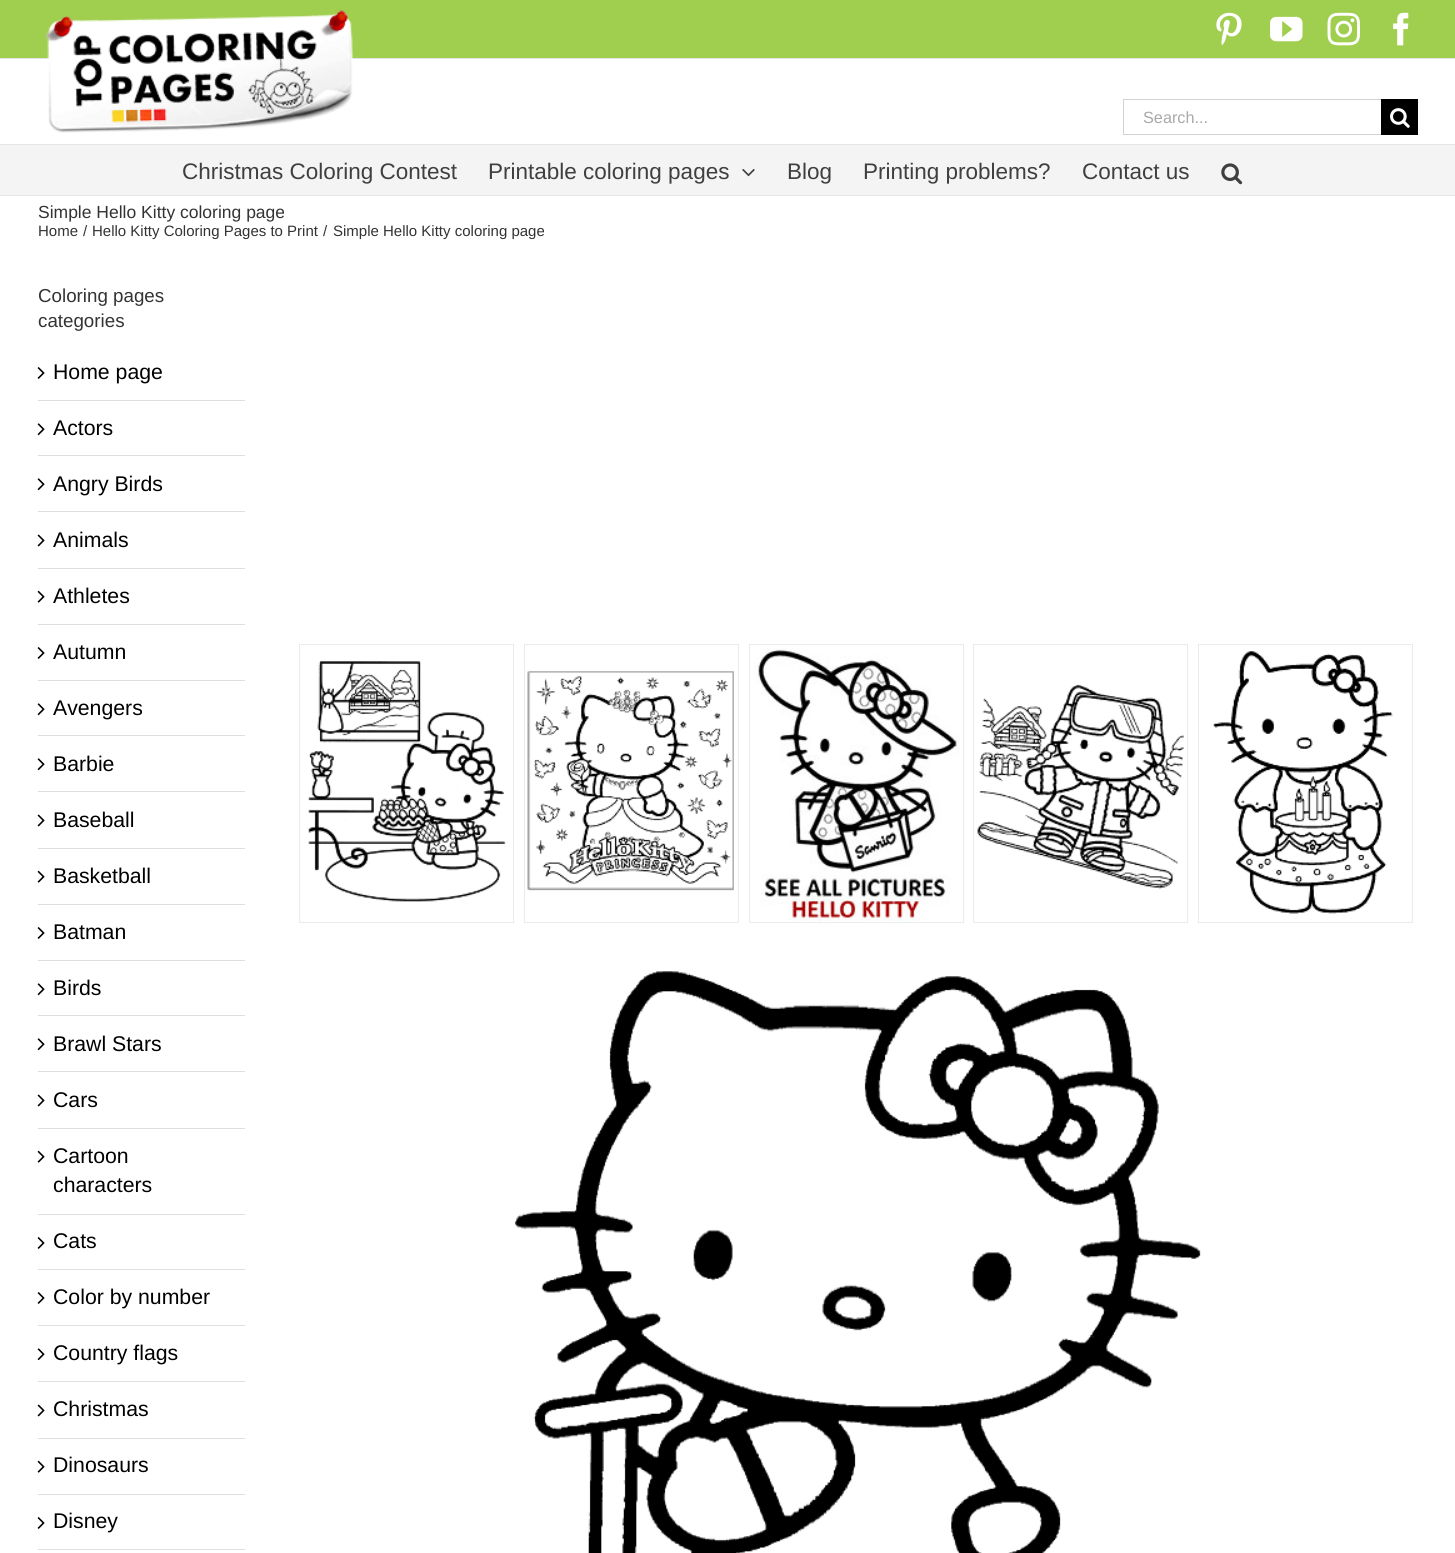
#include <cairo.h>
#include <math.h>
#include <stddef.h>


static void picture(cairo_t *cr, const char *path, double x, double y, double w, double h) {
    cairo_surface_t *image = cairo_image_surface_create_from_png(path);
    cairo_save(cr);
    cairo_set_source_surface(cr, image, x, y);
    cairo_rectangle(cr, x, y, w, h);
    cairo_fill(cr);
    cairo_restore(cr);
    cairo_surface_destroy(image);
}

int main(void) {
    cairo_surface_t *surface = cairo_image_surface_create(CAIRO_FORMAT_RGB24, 1455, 1553);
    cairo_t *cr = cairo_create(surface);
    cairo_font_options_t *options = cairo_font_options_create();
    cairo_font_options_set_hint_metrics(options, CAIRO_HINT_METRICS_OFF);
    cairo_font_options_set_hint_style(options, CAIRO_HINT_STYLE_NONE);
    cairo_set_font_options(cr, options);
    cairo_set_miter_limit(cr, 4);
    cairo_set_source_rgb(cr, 1, 1, 1);
    cairo_paint(cr);
    cairo_set_source_rgb(cr, 0.627, 0.808, 0.306);
    cairo_rectangle(cr, 0, 0, 1455, 58);
    cairo_fill(cr);
    cairo_set_source_rgb(cr, 0.898, 0.898, 0.898);
    cairo_rectangle(cr, 0, 58, 1455, 1);
    cairo_fill(cr);
    picture(cr, "img1.png", 1216, 12, 26, 34);
    picture(cr, "img2.png", 1270, 16, 33, 26);
    picture(cr, "img3.png", 1327, 12, 33, 34);
    picture(cr, "img4.png", 1393, 12, 16, 34);
    cairo_rectangle(cr, 0, 144, 1455, 1);
    cairo_fill(cr);
    picture(cr, "img5.png", 45, 10, 308, 123);
    cairo_set_source_rgb(cr, 0.824, 0.824, 0.824);
    cairo_rectangle(cr, 1123, 99, 258, 1);
    cairo_fill(cr);
    cairo_rectangle(cr, 1123, 134, 258, 1);
    cairo_fill(cr);
    cairo_rectangle(cr, 1123, 99, 1, 36);
    cairo_fill(cr);
    cairo_select_font_face(cr, "Liberation Sans", CAIRO_FONT_SLANT_NORMAL, CAIRO_FONT_WEIGHT_NORMAL);
    cairo_set_font_size(cr, 16.25);
    cairo_set_source_rgb(cr, 0.667, 0.663, 0.663);
    cairo_move_to(cr, 1143, 123);
    cairo_show_text(cr, "Search...");
    cairo_set_source_rgb(cr, 0, 0, 0);
    cairo_rectangle(cr, 1381, 99, 37, 36);
    cairo_fill(cr);
    picture(cr, "img6.png", 1390, 108, 20, 20);
    cairo_set_source_rgb(cr, 0.957, 0.957, 0.957);
    cairo_rectangle(cr, 0, 145, 1455, 50);
    cairo_fill(cr);
    cairo_set_source_rgb(cr, 0.898, 0.898, 0.898);
    cairo_rectangle(cr, 0, 195, 1455, 1);
    cairo_fill(cr);
    cairo_set_font_size(cr, 22.5);
    cairo_set_source_rgb(cr, 0.247, 0.247, 0.247);
    cairo_move_to(cr, 182, 179);
    cairo_show_text(cr, "Christmas Coloring Contest");
    cairo_move_to(cr, 488, 179);
    cairo_show_text(cr, "Printable coloring pages");
    picture(cr, "img7.png", 742, 169, 13, 8);
    cairo_move_to(cr, 787, 179);
    cairo_show_text(cr, "Blog");
    cairo_move_to(cr, 863, 179);
    cairo_show_text(cr, "Printing problems?");
    cairo_move_to(cr, 1082, 179);
    cairo_show_text(cr, "Contact us");
    picture(cr, "img8.png", 1221, 163, 22, 22);
    cairo_set_font_size(cr, 17.5);
    cairo_set_source_rgb(cr, 0.2, 0.2, 0.2);
    cairo_move_to(cr, 38, 218);
    cairo_show_text(cr, "Simple Hello Kitty coloring page");
    cairo_set_font_size(cr, 15);
    cairo_move_to(cr, 38, 236);
    cairo_show_text(cr, "Home");
    cairo_move_to(cr, 83, 236);
    cairo_show_text(cr, "/");
    cairo_move_to(cr, 92, 236);
    cairo_show_text(cr, "Hello Kitty Coloring Pages to Print");
    cairo_move_to(cr, 323, 236);
    cairo_show_text(cr, "/");
    cairo_move_to(cr, 333, 236);
    cairo_show_text(cr, "Simple Hello Kitty coloring page");
    cairo_set_font_size(cr, 18.75);
    cairo_move_to(cr, 38, 302);
    cairo_show_text(cr, "Coloring pages");
    cairo_move_to(cr, 38, 327);
    cairo_show_text(cr, "categories");
    cairo_set_source_rgb(cr, 0.878, 0.871, 0.871);
    cairo_rectangle(cr, 38, 400, 207, 1);
    cairo_fill(cr);
    picture(cr, "img9.png", 37, 367, 8, 12);
    cairo_set_font_size(cr, 21.25);
    cairo_set_source_rgb(cr, 0, 0, 0);
    cairo_move_to(cr, 53, 379);
    cairo_show_text(cr, "Home page");
    cairo_set_source_rgb(cr, 0.878, 0.871, 0.871);
    cairo_rectangle(cr, 38, 455, 207, 1);
    cairo_fill(cr);
    picture(cr, "img10.png", 37, 423, 8, 13);
    cairo_set_source_rgb(cr, 0, 0, 0);
    cairo_move_to(cr, 53, 435);
    cairo_show_text(cr, "Actors");
    cairo_set_source_rgb(cr, 0.878, 0.871, 0.871);
    cairo_rectangle(cr, 38, 511, 207, 1);
    cairo_fill(cr);
    picture(cr, "img10.png", 37, 478, 8, 13);
    cairo_set_source_rgb(cr, 0, 0, 0);
    cairo_move_to(cr, 53, 491);
    cairo_show_text(cr, "Angry Birds");
    cairo_set_source_rgb(cr, 0.878, 0.871, 0.871);
    cairo_rectangle(cr, 38, 568, 207, 1);
    cairo_fill(cr);
    picture(cr, "img11.png", 37, 534, 8, 13);
    cairo_set_source_rgb(cr, 0, 0, 0);
    cairo_move_to(cr, 53, 547);
    cairo_show_text(cr, "Animals");
    cairo_set_source_rgb(cr, 0.878, 0.871, 0.871);
    cairo_rectangle(cr, 38, 624, 207, 1);
    cairo_fill(cr);
    picture(cr, "img12.png", 37, 590, 8, 13);
    cairo_set_source_rgb(cr, 0, 0, 0);
    cairo_move_to(cr, 53, 603);
    cairo_show_text(cr, "Athletes");
    cairo_set_source_rgb(cr, 0.878, 0.871, 0.871);
    cairo_rectangle(cr, 38, 680, 207, 1);
    cairo_fill(cr);
    picture(cr, "img9.png", 37, 647, 8, 12);
    cairo_set_source_rgb(cr, 0, 0, 0);
    cairo_move_to(cr, 53, 659);
    cairo_show_text(cr, "Autumn");
    cairo_set_source_rgb(cr, 0.878, 0.871, 0.871);
    cairo_rectangle(cr, 38, 735, 207, 1);
    cairo_fill(cr);
    picture(cr, "img10.png", 37, 703, 8, 13);
    cairo_set_source_rgb(cr, 0, 0, 0);
    cairo_move_to(cr, 53, 715);
    cairo_show_text(cr, "Avengers");
    cairo_set_source_rgb(cr, 0.878, 0.871, 0.871);
    cairo_rectangle(cr, 38, 791, 207, 1);
    cairo_fill(cr);
    picture(cr, "img10.png", 37, 758, 8, 13);
    cairo_set_source_rgb(cr, 0, 0, 0);
    cairo_move_to(cr, 53, 771);
    cairo_show_text(cr, "Barbie");
    cairo_set_source_rgb(cr, 0.878, 0.871, 0.871);
    cairo_rectangle(cr, 38, 848, 207, 1);
    cairo_fill(cr);
    picture(cr, "img11.png", 37, 814, 8, 13);
    cairo_set_source_rgb(cr, 0, 0, 0);
    cairo_move_to(cr, 53, 827);
    cairo_show_text(cr, "Baseball");
    cairo_set_source_rgb(cr, 0.878, 0.871, 0.871);
    cairo_rectangle(cr, 38, 904, 207, 1);
    cairo_fill(cr);
    picture(cr, "img12.png", 37, 870, 8, 13);
    cairo_set_source_rgb(cr, 0, 0, 0);
    cairo_move_to(cr, 53, 883);
    cairo_show_text(cr, "Basketball");
    cairo_set_source_rgb(cr, 0.878, 0.871, 0.871);
    cairo_rectangle(cr, 38, 960, 207, 1);
    cairo_fill(cr);
    picture(cr, "img9.png", 37, 927, 8, 12);
    cairo_set_source_rgb(cr, 0, 0, 0);
    cairo_move_to(cr, 53, 939);
    cairo_show_text(cr, "Batman");
    cairo_set_source_rgb(cr, 0.878, 0.871, 0.871);
    cairo_rectangle(cr, 38, 1015, 207, 1);
    cairo_fill(cr);
    picture(cr, "img10.png", 37, 983, 8, 13);
    cairo_set_source_rgb(cr, 0, 0, 0);
    cairo_move_to(cr, 53, 995);
    cairo_show_text(cr, "Birds");
    cairo_set_source_rgb(cr, 0.878, 0.871, 0.871);
    cairo_rectangle(cr, 38, 1071, 207, 1);
    cairo_fill(cr);
    picture(cr, "img10.png", 37, 1038, 8, 13);
    cairo_set_source_rgb(cr, 0, 0, 0);
    cairo_move_to(cr, 53, 1051);
    cairo_show_text(cr, "Brawl Stars");
    cairo_set_source_rgb(cr, 0.878, 0.871, 0.871);
    cairo_rectangle(cr, 38, 1128, 207, 1);
    cairo_fill(cr);
    picture(cr, "img11.png", 37, 1094, 8, 13);
    cairo_set_source_rgb(cr, 0, 0, 0);
    cairo_move_to(cr, 53, 1107);
    cairo_show_text(cr, "Cars");
    cairo_set_source_rgb(cr, 0.878, 0.871, 0.871);
    cairo_rectangle(cr, 38, 1214, 207, 1);
    cairo_fill(cr);
    picture(cr, "img12.png", 37, 1150, 8, 13);
    cairo_set_source_rgb(cr, 0, 0, 0);
    cairo_move_to(cr, 53, 1163);
    cairo_show_text(cr, "Cartoon");
    cairo_move_to(cr, 53, 1192);
    cairo_show_text(cr, "characters");
    cairo_set_source_rgb(cr, 0.878, 0.871, 0.871);
    cairo_rectangle(cr, 38, 1269, 207, 1);
    cairo_fill(cr);
    picture(cr, "img9.png", 37, 1237, 8, 12);
    cairo_set_source_rgb(cr, 0, 0, 0);
    cairo_move_to(cr, 53, 1248);
    cairo_show_text(cr, "Cats");
    cairo_set_source_rgb(cr, 0.878, 0.871, 0.871);
    cairo_rectangle(cr, 38, 1325, 207, 1);
    cairo_fill(cr);
    picture(cr, "img9.png", 37, 1292, 8, 12);
    cairo_set_source_rgb(cr, 0, 0, 0);
    cairo_move_to(cr, 53, 1304);
    cairo_show_text(cr, "Color by number");
    cairo_set_source_rgb(cr, 0.878, 0.871, 0.871);
    cairo_rectangle(cr, 38, 1381, 207, 1);
    cairo_fill(cr);
    picture(cr, "img10.png", 37, 1348, 8, 13);
    cairo_set_source_rgb(cr, 0, 0, 0);
    cairo_move_to(cr, 53, 1360);
    cairo_show_text(cr, "Country flags");
    cairo_set_source_rgb(cr, 0.878, 0.871, 0.871);
    cairo_rectangle(cr, 38, 1438, 207, 1);
    cairo_fill(cr);
    picture(cr, "img11.png", 37, 1404, 8, 13);
    cairo_set_source_rgb(cr, 0, 0, 0);
    cairo_move_to(cr, 53, 1416);
    cairo_show_text(cr, "Christmas");
    cairo_set_source_rgb(cr, 0.878, 0.871, 0.871);
    cairo_rectangle(cr, 38, 1494, 207, 1);
    cairo_fill(cr);
    picture(cr, "img12.png", 37, 1460, 8, 13);
    cairo_set_source_rgb(cr, 0, 0, 0);
    cairo_move_to(cr, 53, 1472);
    cairo_show_text(cr, "Dinosaurs");
    cairo_set_source_rgb(cr, 0.878, 0.871, 0.871);
    cairo_rectangle(cr, 38, 1549, 207, 1);
    cairo_fill(cr);
    picture(cr, "img9.png", 37, 1517, 8, 12);
    cairo_set_source_rgb(cr, 0, 0, 0);
    cairo_move_to(cr, 53, 1528);
    cairo_show_text(cr, "Disney");
    cairo_rectangle(cr, 299.5, 644.5, 214, 278);
    cairo_set_source_rgb(cr, 0.914, 0.918, 0.933);
    cairo_set_line_width(cr, 1);
    cairo_stroke(cr);
    picture(cr, "img13.png", 308, 661, 198, 241);
    cairo_rectangle(cr, 524.5, 644.5, 214, 278);
    cairo_stroke(cr);
    picture(cr, "img14.png", 527, 671, 207, 220);
    cairo_rectangle(cr, 749.5, 644.5, 214, 278);
    cairo_stroke(cr);
    picture(cr, "img15.png", 754, 648, 206, 273);
    cairo_rectangle(cr, 973.5, 644.5, 214, 278);
    cairo_stroke(cr);
    picture(cr, "img16.png", 977, 684, 207, 205);
    cairo_rectangle(cr, 1198.5, 644.5, 214, 278);
    cairo_stroke(cr);
    picture(cr, "img17.png", 1213, 651, 180, 263);
    picture(cr, "img18.png", 514, 971, 687, 582);
    cairo_surface_write_to_png(surface, "page.png");
    cairo_font_options_destroy(options);
    cairo_destroy(cr);
    cairo_surface_destroy(surface);
    return 0;
}
